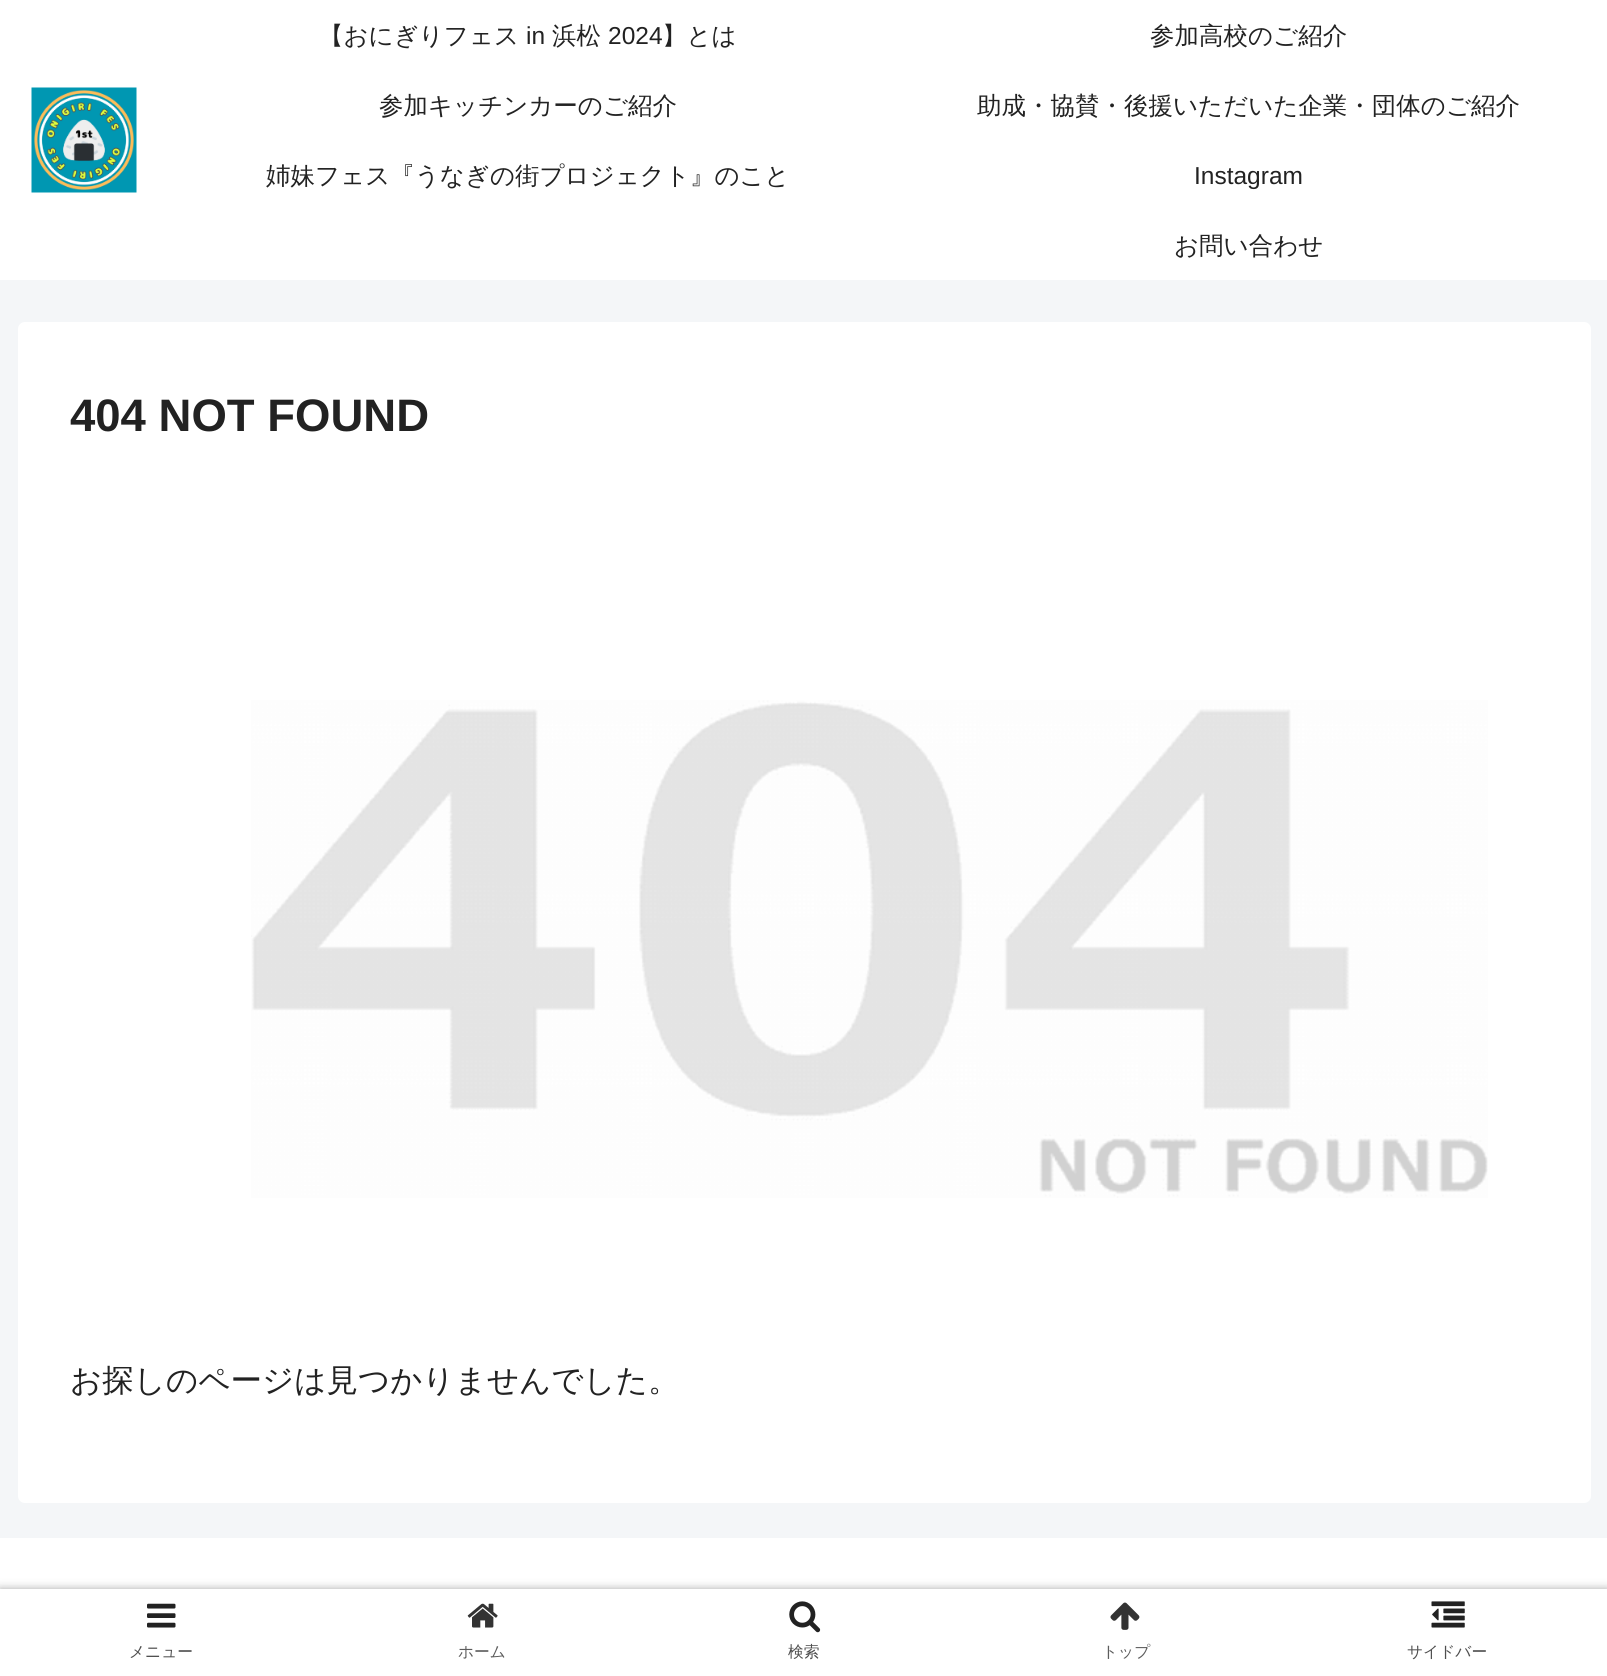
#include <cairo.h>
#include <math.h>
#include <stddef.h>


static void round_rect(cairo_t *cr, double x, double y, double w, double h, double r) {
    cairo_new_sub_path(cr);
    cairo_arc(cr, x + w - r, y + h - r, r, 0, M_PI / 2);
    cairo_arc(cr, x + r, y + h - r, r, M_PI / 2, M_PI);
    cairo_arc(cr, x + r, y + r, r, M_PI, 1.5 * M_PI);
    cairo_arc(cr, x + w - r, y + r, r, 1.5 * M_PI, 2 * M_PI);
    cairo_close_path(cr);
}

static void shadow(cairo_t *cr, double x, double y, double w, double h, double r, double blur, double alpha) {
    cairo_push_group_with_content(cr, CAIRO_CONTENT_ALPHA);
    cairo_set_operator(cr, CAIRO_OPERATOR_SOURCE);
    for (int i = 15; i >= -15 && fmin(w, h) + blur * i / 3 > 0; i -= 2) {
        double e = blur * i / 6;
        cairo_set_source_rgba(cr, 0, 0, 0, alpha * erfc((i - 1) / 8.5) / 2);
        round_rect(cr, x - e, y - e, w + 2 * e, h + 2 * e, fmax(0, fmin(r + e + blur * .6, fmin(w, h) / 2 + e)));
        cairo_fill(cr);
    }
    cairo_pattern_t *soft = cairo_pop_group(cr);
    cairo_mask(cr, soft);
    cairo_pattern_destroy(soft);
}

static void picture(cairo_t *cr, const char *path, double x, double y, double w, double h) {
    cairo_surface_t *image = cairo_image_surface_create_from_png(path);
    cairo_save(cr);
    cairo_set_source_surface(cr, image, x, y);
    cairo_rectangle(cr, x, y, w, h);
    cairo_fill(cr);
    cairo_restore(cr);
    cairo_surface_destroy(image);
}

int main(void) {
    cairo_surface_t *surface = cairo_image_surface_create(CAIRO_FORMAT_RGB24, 1607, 1676);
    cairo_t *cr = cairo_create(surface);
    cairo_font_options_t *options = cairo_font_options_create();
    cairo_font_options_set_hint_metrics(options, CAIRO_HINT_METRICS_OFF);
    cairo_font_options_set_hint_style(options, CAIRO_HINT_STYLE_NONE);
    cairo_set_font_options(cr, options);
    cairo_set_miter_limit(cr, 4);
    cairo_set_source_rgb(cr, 0.957, 0.961, 0.969);
    cairo_paint(cr);
    cairo_set_source_rgb(cr, 1, 1, 1);
    cairo_rectangle(cr, 0, 0, 1607, 280);
    cairo_fill(cr);
    picture(cr, "img1.png", 31, 87, 106, 106);
    cairo_select_font_face(cr, "WenQuanYi Zen Hei Medium", CAIRO_FONT_SLANT_NORMAL, CAIRO_FONT_WEIGHT_NORMAL);
    cairo_set_font_size(cr, 24.5);
    cairo_set_source_rgb(cr, 0.133, 0.133, 0.133);
    cairo_move_to(cr, 319, 44);
    cairo_show_text(cr, "【おにぎりフェス");
    cairo_select_font_face(cr, "Liberation Sans", CAIRO_FONT_SLANT_NORMAL, CAIRO_FONT_WEIGHT_NORMAL);
    cairo_move_to(cr, 526, 44);
    cairo_show_text(cr, "in");
    cairo_select_font_face(cr, "WenQuanYi Zen Hei Medium", CAIRO_FONT_SLANT_NORMAL, CAIRO_FONT_WEIGHT_NORMAL);
    cairo_move_to(cr, 552, 44);
    cairo_show_text(cr, "浜松");
    cairo_select_font_face(cr, "Liberation Sans", CAIRO_FONT_SLANT_NORMAL, CAIRO_FONT_WEIGHT_NORMAL);
    cairo_move_to(cr, 608, 44);
    cairo_show_text(cr, "2024");
    cairo_select_font_face(cr, "WenQuanYi Zen Hei Medium", CAIRO_FONT_SLANT_NORMAL, CAIRO_FONT_WEIGHT_NORMAL);
    cairo_move_to(cr, 662, 44);
    cairo_show_text(cr, "】とは");
    cairo_move_to(cr, 1150, 44);
    cairo_show_text(cr, "参加高校のご紹介");
    cairo_move_to(cr, 379, 114);
    cairo_show_text(cr, "参加キッチンカーのご紹介");
    cairo_move_to(cr, 977, 114);
    cairo_show_text(cr, "助成・協賛・後援いただいた企業・団体のご紹介");
    cairo_move_to(cr, 266, 184);
    cairo_show_text(cr, "姉妹フェス『うなぎの街プロジェクト』のこと");
    cairo_select_font_face(cr, "Liberation Sans", CAIRO_FONT_SLANT_NORMAL, CAIRO_FONT_WEIGHT_NORMAL);
    cairo_move_to(cr, 1194, 184);
    cairo_show_text(cr, "Instagram");
    cairo_select_font_face(cr, "WenQuanYi Zen Hei Medium", CAIRO_FONT_SLANT_NORMAL, CAIRO_FONT_WEIGHT_NORMAL);
    cairo_move_to(cr, 1174, 254);
    cairo_show_text(cr, "お問い合わせ");
    cairo_set_source_rgb(cr, 1, 1, 1);
    round_rect(cr, 18, 322, 1573, 1181, 7);
    cairo_fill(cr);
    cairo_select_font_face(cr, "Liberation Sans", CAIRO_FONT_SLANT_NORMAL, CAIRO_FONT_WEIGHT_BOLD);
    cairo_set_font_size(cr, 45.5);
    cairo_set_source_rgb(cr, 0.133, 0.133, 0.133);
    cairo_move_to(cr, 70, 431);
    cairo_show_text(cr, "404 NOT FOUND");
    picture(cr, "img2.png", 251, 700, 1237, 498);
    cairo_select_font_face(cr, "WenQuanYi Zen Hei Medium", CAIRO_FONT_SLANT_NORMAL, CAIRO_FONT_WEIGHT_NORMAL);
    cairo_set_font_size(cr, 31.5);
    cairo_move_to(cr, 70, 1391);
    cairo_show_text(cr, "お探しのページは見つかりませんでした。");
    cairo_set_source_rgb(cr, 1, 1, 1);
    cairo_rectangle(cr, 0, 1538, 1607, 51);
    cairo_fill(cr);
    cairo_set_source_rgb(cr, 0.663, 0.663, 0.663);
    shadow(cr, 0, 1589, 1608, 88, 0, 4.5, 1);
    cairo_set_source_rgb(cr, 1, 1, 1);
    cairo_rectangle(cr, 0, 1589, 1607, 87);
    cairo_fill(cr);
    picture(cr, "img3.png", 147, 1603, 29, 25);
    cairo_set_font_size(cr, 15.75);
    cairo_set_source_rgb(cr, 0.306, 0.306, 0.306);
    cairo_move_to(cr, 129, 1657);
    cairo_show_text(cr, "メニュー");
    picture(cr, "img4.png", 467, 1603, 31, 25);
    cairo_set_source_rgb(cr, 0.361, 0.361, 0.361);
    cairo_move_to(cr, 458, 1657);
    cairo_show_text(cr, "ホーム");
    picture(cr, "img5.png", 789, 1601, 32, 32);
    cairo_set_source_rgb(cr, 0.306, 0.306, 0.306);
    cairo_move_to(cr, 788, 1657);
    cairo_show_text(cr, "検索");
    picture(cr, "img6.png", 1110, 1602, 30, 28);
    cairo_set_source_rgb(cr, 0.361, 0.361, 0.361);
    cairo_move_to(cr, 1102, 1657);
    cairo_show_text(cr, "トップ");
    picture(cr, "img7.png", 1431, 1601, 34, 27);
    cairo_set_source_rgb(cr, 0.306, 0.306, 0.306);
    cairo_move_to(cr, 1407, 1657);
    cairo_show_text(cr, "サイドバー");
    cairo_surface_write_to_png(surface, "page.png");
    cairo_font_options_destroy(options);
    cairo_destroy(cr);
    cairo_surface_destroy(surface);
    return 0;
}
